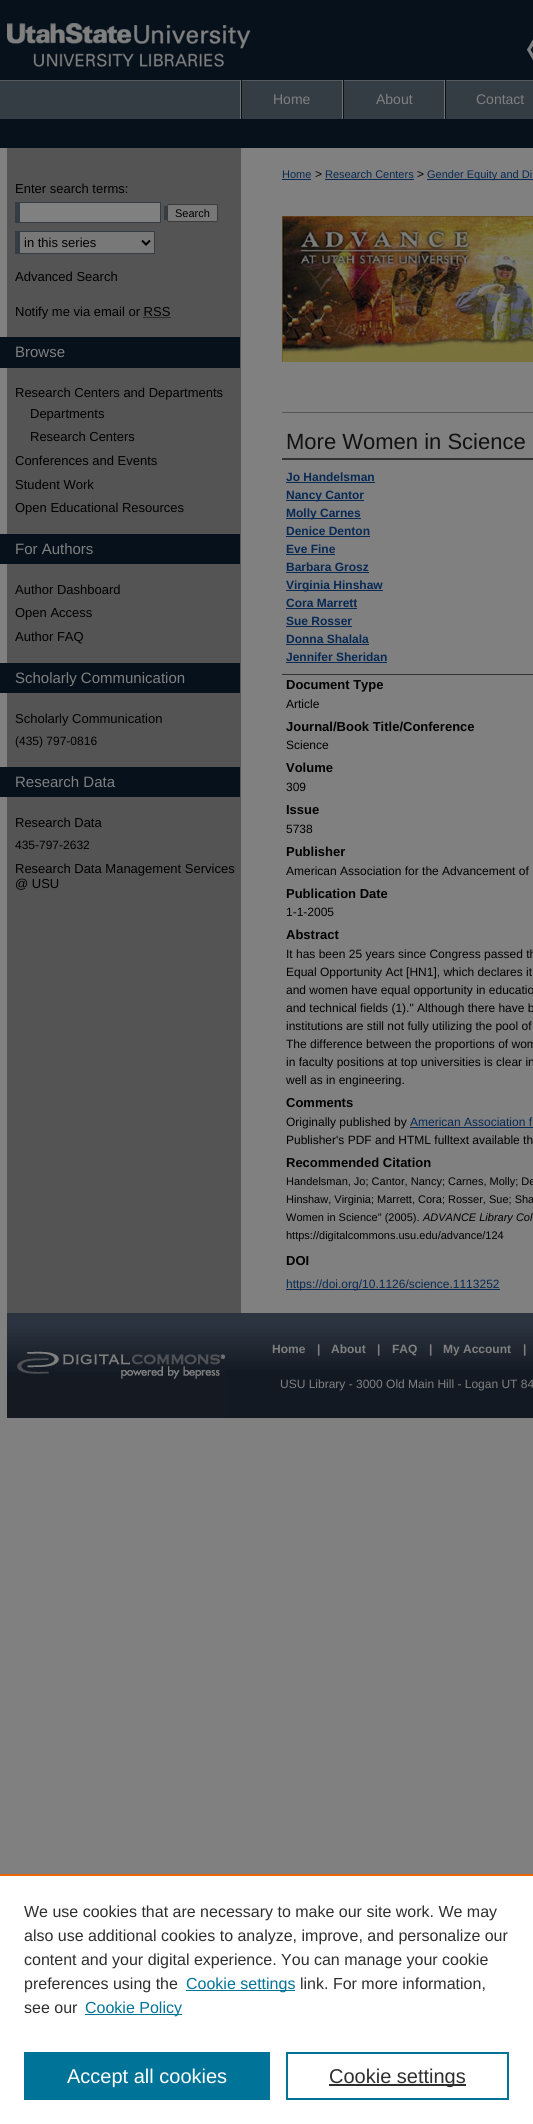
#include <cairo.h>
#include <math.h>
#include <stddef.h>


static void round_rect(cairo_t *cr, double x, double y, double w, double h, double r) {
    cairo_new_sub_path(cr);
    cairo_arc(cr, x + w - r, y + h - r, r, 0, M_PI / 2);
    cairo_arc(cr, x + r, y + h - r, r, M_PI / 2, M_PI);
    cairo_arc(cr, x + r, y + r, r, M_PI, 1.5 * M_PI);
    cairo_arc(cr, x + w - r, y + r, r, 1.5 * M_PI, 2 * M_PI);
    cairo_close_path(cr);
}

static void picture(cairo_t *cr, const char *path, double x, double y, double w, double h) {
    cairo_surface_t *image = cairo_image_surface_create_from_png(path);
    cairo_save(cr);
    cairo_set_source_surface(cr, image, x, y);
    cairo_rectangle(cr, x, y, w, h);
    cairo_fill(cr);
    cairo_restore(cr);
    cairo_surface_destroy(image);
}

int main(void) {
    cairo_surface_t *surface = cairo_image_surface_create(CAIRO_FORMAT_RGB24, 533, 2124);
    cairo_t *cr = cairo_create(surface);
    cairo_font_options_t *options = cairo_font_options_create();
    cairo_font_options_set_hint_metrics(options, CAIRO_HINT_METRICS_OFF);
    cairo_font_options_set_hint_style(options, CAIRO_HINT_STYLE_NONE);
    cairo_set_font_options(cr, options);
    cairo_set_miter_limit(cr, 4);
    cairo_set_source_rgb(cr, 0.502, 0.502, 0.502);
    cairo_paint(cr);
    picture(cr, "img1.png", 0, 0, 533, 80);
    picture(cr, "img2.png", 7, 23, 244, 44);
    picture(cr, "img3.png", 527, 39, 6, 21);
    cairo_set_source_rgb(cr, 0.204, 0.235, 0.267);
    cairo_rectangle(cr, 0, 81, 533, 38);
    cairo_fill(cr);
    cairo_set_source_rgb(cr, 0.333, 0.353, 0.369);
    cairo_rectangle(cr, 0, 80, 533, 1);
    cairo_fill(cr);
    cairo_set_source_rgb(cr, 0.024, 0.067, 0.11);
    cairo_rectangle(cr, 0, 119, 533, 29);
    cairo_fill(cr);
    cairo_set_source_rgb(cr, 0.443, 0.443, 0.443);
    cairo_rectangle(cr, 240, 80, 1, 39);
    cairo_fill(cr);
    cairo_rectangle(cr, 342, 80, 1, 39);
    cairo_fill(cr);
    cairo_set_source_rgb(cr, 0.024, 0.067, 0.11);
    cairo_rectangle(cr, 241, 80, 1, 39);
    cairo_fill(cr);
    cairo_select_font_face(cr, "Liberation Sans", CAIRO_FONT_SLANT_NORMAL, CAIRO_FONT_WEIGHT_NORMAL);
    cairo_set_font_size(cr, 14);
    cairo_set_source_rgb(cr, 0.502, 0.502, 0.502);
    cairo_move_to(cr, 273, 104);
    cairo_show_text(cr, "Home");
    cairo_set_source_rgb(cr, 0.443, 0.443, 0.443);
    cairo_rectangle(cr, 444, 80, 1, 39);
    cairo_fill(cr);
    cairo_set_source_rgb(cr, 0.024, 0.067, 0.11);
    cairo_rectangle(cr, 343, 80, 1, 39);
    cairo_fill(cr);
    cairo_set_source_rgb(cr, 0.502, 0.502, 0.502);
    cairo_move_to(cr, 376, 104);
    cairo_show_text(cr, "About");
    cairo_set_source_rgb(cr, 0.024, 0.067, 0.11);
    cairo_rectangle(cr, 445, 80, 1, 39);
    cairo_fill(cr);
    cairo_set_source_rgb(cr, 0.502, 0.502, 0.502);
    cairo_move_to(cr, 476, 104);
    cairo_show_text(cr, "Contact");
    cairo_set_source_rgb(cr, 0.333, 0.329, 0.329);
    cairo_rectangle(cr, 7, 148, 234, 1165);
    cairo_fill(cr);
    cairo_set_font_size(cr, 13);
    cairo_set_source_rgb(cr, 0, 0, 0);
    cairo_move_to(cr, 15, 193);
    cairo_show_text(cr, "Enter search terms:");
    cairo_set_source_rgb(cr, 0.204, 0.235, 0.267);
    cairo_rectangle(cr, 15, 202, 146, 21);
    cairo_fill(cr);
    cairo_rectangle(cr, 164, 206, 3, 14);
    cairo_fill(cr);
    cairo_set_source_rgb(cr, 0.502, 0.502, 0.502);
    cairo_rectangle(cr, 20, 203, 140, 19);
    cairo_fill(cr);
    cairo_set_source_rgb(cr, 0.471, 0.471, 0.471);
    round_rect(cr, 167.5, 204.5, 50, 17, 1.5);
    cairo_fill_preserve(cr);
    cairo_set_source_rgb(cr, 0.231, 0.231, 0.231);
    cairo_set_line_width(cr, 1);
    cairo_stroke(cr);
    cairo_set_font_size(cr, 11);
    cairo_set_source_rgb(cr, 0, 0, 0);
    cairo_move_to(cr, 175, 217);
    cairo_show_text(cr, "Search");
    cairo_set_source_rgb(cr, 0.471, 0.471, 0.471);
    cairo_rectangle(cr, 20, 232, 134, 21);
    cairo_fill(cr);
    cairo_set_source_rgb(cr, 0.204, 0.235, 0.267);
    cairo_rectangle(cr, 15, 231, 140, 1);
    cairo_fill(cr);
    cairo_rectangle(cr, 154, 231, 1, 23);
    cairo_fill(cr);
    cairo_rectangle(cr, 15, 253, 140, 1);
    cairo_fill(cr);
    cairo_rectangle(cr, 15, 231, 5, 23);
    cairo_fill(cr);
    cairo_new_path(cr);
    cairo_move_to(cr, 142, 240.5);
    cairo_line_to(cr, 146, 244.5);
    cairo_line_to(cr, 150, 240.5);
    cairo_set_source_rgb(cr, 0, 0, 0);
    cairo_set_line_width(cr, 2);
    cairo_stroke(cr);
    cairo_set_font_size(cr, 13);
    cairo_move_to(cr, 24, 247);
    cairo_show_text(cr, "in this series");
    cairo_move_to(cr, 15, 281);
    cairo_show_text(cr, "Advanced Search");
    cairo_move_to(cr, 15, 316);
    cairo_show_text(cr, "Notify me via email or RSS");
    cairo_new_path(cr);
    cairo_move_to(cr, 143.5, 317.5);
    cairo_line_to(cr, 170.5, 317.5);
    cairo_set_line_width(cr, 1);
    cairo_set_dash(cr, (double[]){1, 1}, 2, 0);
    cairo_stroke(cr);
    cairo_new_path(cr);
    cairo_move_to(cr, 144, 319.5);
    cairo_line_to(cr, 170, 319.5);
    cairo_set_source_rgb(cr, 0.302, 0.302, 0.302);
    cairo_stroke(cr);
    cairo_set_source_rgb(cr, 0.024, 0.067, 0.11);
    cairo_rectangle(cr, 0, 337, 240, 31);
    cairo_fill(cr);
    cairo_set_font_size(cr, 15);
    cairo_set_source_rgb(cr, 0.502, 0.502, 0.502);
    cairo_move_to(cr, 15, 357);
    cairo_show_text(cr, "Browse");
    cairo_set_font_size(cr, 13);
    cairo_set_source_rgb(cr, 0, 0, 0);
    cairo_move_to(cr, 15, 397);
    cairo_show_text(cr, "Research Centers and Departments");
    cairo_move_to(cr, 30, 418);
    cairo_show_text(cr, "Departments");
    cairo_move_to(cr, 30, 441);
    cairo_show_text(cr, "Research Centers");
    cairo_move_to(cr, 15, 465);
    cairo_show_text(cr, "Conferences and Events");
    cairo_move_to(cr, 15, 489);
    cairo_show_text(cr, "Student Work");
    cairo_move_to(cr, 15, 512);
    cairo_show_text(cr, "Open Educational Resources");
    cairo_set_source_rgb(cr, 0.024, 0.067, 0.11);
    cairo_rectangle(cr, 0, 534, 240, 30);
    cairo_fill(cr);
    cairo_set_font_size(cr, 15);
    cairo_set_source_rgb(cr, 0.502, 0.502, 0.502);
    cairo_move_to(cr, 15, 554);
    cairo_show_text(cr, "For Authors");
    cairo_set_font_size(cr, 13);
    cairo_set_source_rgb(cr, 0, 0, 0);
    cairo_move_to(cr, 15, 594);
    cairo_show_text(cr, "Author Dashboard");
    cairo_move_to(cr, 15, 617);
    cairo_show_text(cr, "Open Access");
    cairo_move_to(cr, 15, 641);
    cairo_show_text(cr, "Author FAQ");
    cairo_set_source_rgb(cr, 0.024, 0.067, 0.11);
    cairo_rectangle(cr, 0, 663, 240, 30);
    cairo_fill(cr);
    cairo_set_font_size(cr, 15);
    cairo_set_source_rgb(cr, 0.502, 0.502, 0.502);
    cairo_move_to(cr, 15, 683);
    cairo_show_text(cr, "Scholarly Communication");
    cairo_set_font_size(cr, 13);
    cairo_set_source_rgb(cr, 0, 0, 0);
    cairo_move_to(cr, 15, 723);
    cairo_show_text(cr, "Scholarly Communication");
    cairo_set_font_size(cr, 12);
    cairo_move_to(cr, 15, 745);
    cairo_show_text(cr, "(435) 797-0816");
    cairo_set_source_rgb(cr, 0.024, 0.067, 0.11);
    cairo_rectangle(cr, 0, 767, 240, 30);
    cairo_fill(cr);
    cairo_set_font_size(cr, 15);
    cairo_set_source_rgb(cr, 0.502, 0.502, 0.502);
    cairo_move_to(cr, 15, 787);
    cairo_show_text(cr, "Research Data");
    cairo_set_font_size(cr, 13);
    cairo_set_source_rgb(cr, 0, 0, 0);
    cairo_move_to(cr, 15, 827);
    cairo_show_text(cr, "Research Data");
    cairo_set_font_size(cr, 12);
    cairo_move_to(cr, 15, 849);
    cairo_show_text(cr, "435-797-2632");
    cairo_set_font_size(cr, 13);
    cairo_move_to(cr, 15, 873);
    cairo_show_text(cr, "Research Data Management Services");
    cairo_move_to(cr, 15, 888);
    cairo_show_text(cr, "@ USU");
    cairo_set_font_size(cr, 11);
    cairo_set_source_rgb(cr, 0.031, 0.161, 0.325);
    cairo_move_to(cr, 282, 178);
    cairo_show_text(cr, "Home");
    cairo_rectangle(cr, 282, 179, 29, 1);
    cairo_fill(cr);
    cairo_set_font_size(cr, 12);
    cairo_set_source_rgb(cr, 0, 0, 0);
    cairo_move_to(cr, 315, 178);
    cairo_show_text(cr, ">");
    cairo_set_font_size(cr, 11);
    cairo_set_source_rgb(cr, 0.031, 0.161, 0.325);
    cairo_move_to(cr, 325, 178);
    cairo_show_text(cr, "Research Centers");
    cairo_rectangle(cr, 325, 179, 89, 1);
    cairo_fill(cr);
    cairo_set_font_size(cr, 12);
    cairo_set_source_rgb(cr, 0, 0, 0);
    cairo_move_to(cr, 417, 178);
    cairo_show_text(cr, ">");
    cairo_set_source_rgb(cr, 0.031, 0.161, 0.325);
    cairo_rectangle(cr, 427, 179, 106, 1);
    cairo_fill(cr);
    cairo_set_font_size(cr, 11);
    cairo_move_to(cr, 427, 178);
    cairo_show_text(cr, "Gender Equity and Di");
    picture(cr, "img4.png", 282, 216, 251, 146);
    cairo_set_source_rgb(cr, 0.333, 0.333, 0.333);
    cairo_rectangle(cr, 282, 412, 251, 1);
    cairo_fill(cr);
    cairo_set_font_size(cr, 22);
    cairo_set_source_rgb(cr, 0.067, 0.067, 0.067);
    cairo_move_to(cr, 286, 449);
    cairo_show_text(cr, "More Women in Science");
    cairo_set_source_rgb(cr, 0.2, 0.2, 0.2);
    cairo_rectangle(cr, 282, 458, 251, 2);
    cairo_fill(cr);
    cairo_rectangle(cr, 282, 674, 251, 1);
    cairo_fill(cr);
    cairo_select_font_face(cr, "Liberation Sans", CAIRO_FONT_SLANT_NORMAL, CAIRO_FONT_WEIGHT_BOLD);
    cairo_set_font_size(cr, 12);
    cairo_set_source_rgb(cr, 0.031, 0.161, 0.325);
    cairo_move_to(cr, 286, 481);
    cairo_show_text(cr, "Jo Handelsman");
    cairo_rectangle(cr, 286, 482, 89, 1);
    cairo_fill(cr);
    cairo_rectangle(cr, 286, 500, 78, 1);
    cairo_fill(cr);
    cairo_move_to(cr, 286, 499);
    cairo_show_text(cr, "Nancy Cantor");
    cairo_rectangle(cr, 286, 518, 75, 1);
    cairo_fill(cr);
    cairo_move_to(cr, 286, 517);
    cairo_show_text(cr, "Molly Carnes");
    cairo_move_to(cr, 286, 535);
    cairo_show_text(cr, "Denice Denton");
    cairo_rectangle(cr, 286, 536, 84, 1);
    cairo_fill(cr);
    cairo_move_to(cr, 286, 553);
    cairo_show_text(cr, "Eve Fine");
    cairo_rectangle(cr, 286, 554, 49, 1);
    cairo_fill(cr);
    cairo_move_to(cr, 286, 571);
    cairo_show_text(cr, "Barbara Grosz");
    cairo_rectangle(cr, 286, 572, 83, 1);
    cairo_fill(cr);
    cairo_rectangle(cr, 286, 590, 97, 1);
    cairo_fill(cr);
    cairo_move_to(cr, 286, 589);
    cairo_show_text(cr, "Virginia Hinshaw");
    cairo_move_to(cr, 286, 607);
    cairo_show_text(cr, "Cora Marrett");
    cairo_rectangle(cr, 286, 608, 71, 1);
    cairo_fill(cr);
    cairo_move_to(cr, 286, 625);
    cairo_show_text(cr, "Sue Rosser");
    cairo_rectangle(cr, 286, 626, 66, 1);
    cairo_fill(cr);
    cairo_move_to(cr, 286, 643);
    cairo_show_text(cr, "Donna Shalala");
    cairo_rectangle(cr, 286, 644, 83, 1);
    cairo_fill(cr);
    cairo_move_to(cr, 286, 661);
    cairo_show_text(cr, "Jennifer Sheridan");
    cairo_rectangle(cr, 286, 662, 101, 1);
    cairo_fill(cr);
    cairo_set_font_size(cr, 13);
    cairo_set_source_rgb(cr, 0, 0, 0);
    cairo_move_to(cr, 286, 689);
    cairo_show_text(cr, "Document Type");
    cairo_select_font_face(cr, "Liberation Sans", CAIRO_FONT_SLANT_NORMAL, CAIRO_FONT_WEIGHT_NORMAL);
    cairo_set_font_size(cr, 12);
    cairo_move_to(cr, 286, 708);
    cairo_show_text(cr, "Article");
    cairo_select_font_face(cr, "Liberation Sans", CAIRO_FONT_SLANT_NORMAL, CAIRO_FONT_WEIGHT_BOLD);
    cairo_set_font_size(cr, 13);
    cairo_move_to(cr, 286, 731);
    cairo_show_text(cr, "Journal/Book Title/Conference");
    cairo_select_font_face(cr, "Liberation Sans", CAIRO_FONT_SLANT_NORMAL, CAIRO_FONT_WEIGHT_NORMAL);
    cairo_set_font_size(cr, 12);
    cairo_move_to(cr, 286, 749);
    cairo_show_text(cr, "Science");
    cairo_select_font_face(cr, "Liberation Sans", CAIRO_FONT_SLANT_NORMAL, CAIRO_FONT_WEIGHT_BOLD);
    cairo_set_font_size(cr, 13);
    cairo_move_to(cr, 286, 772);
    cairo_show_text(cr, "Volume");
    cairo_select_font_face(cr, "Liberation Sans", CAIRO_FONT_SLANT_NORMAL, CAIRO_FONT_WEIGHT_NORMAL);
    cairo_set_font_size(cr, 12);
    cairo_move_to(cr, 286, 791);
    cairo_show_text(cr, "309");
    cairo_select_font_face(cr, "Liberation Sans", CAIRO_FONT_SLANT_NORMAL, CAIRO_FONT_WEIGHT_BOLD);
    cairo_set_font_size(cr, 13);
    cairo_move_to(cr, 286, 814);
    cairo_show_text(cr, "Issue");
    cairo_select_font_face(cr, "Liberation Sans", CAIRO_FONT_SLANT_NORMAL, CAIRO_FONT_WEIGHT_NORMAL);
    cairo_set_font_size(cr, 12);
    cairo_move_to(cr, 286, 833);
    cairo_show_text(cr, "5738");
    cairo_select_font_face(cr, "Liberation Sans", CAIRO_FONT_SLANT_NORMAL, CAIRO_FONT_WEIGHT_BOLD);
    cairo_set_font_size(cr, 13);
    cairo_move_to(cr, 286, 856);
    cairo_show_text(cr, "Publisher");
    cairo_select_font_face(cr, "Liberation Sans", CAIRO_FONT_SLANT_NORMAL, CAIRO_FONT_WEIGHT_NORMAL);
    cairo_set_font_size(cr, 12);
    cairo_move_to(cr, 286, 875);
    cairo_show_text(cr, "American Association for the Advancement of");
    cairo_select_font_face(cr, "Liberation Sans", CAIRO_FONT_SLANT_NORMAL, CAIRO_FONT_WEIGHT_BOLD);
    cairo_set_font_size(cr, 13);
    cairo_move_to(cr, 286, 898);
    cairo_show_text(cr, "Publication Date");
    cairo_select_font_face(cr, "Liberation Sans", CAIRO_FONT_SLANT_NORMAL, CAIRO_FONT_WEIGHT_NORMAL);
    cairo_set_font_size(cr, 12);
    cairo_move_to(cr, 286, 916);
    cairo_show_text(cr, "1-1-2005");
    cairo_select_font_face(cr, "Liberation Sans", CAIRO_FONT_SLANT_NORMAL, CAIRO_FONT_WEIGHT_BOLD);
    cairo_set_font_size(cr, 13);
    cairo_move_to(cr, 286, 939);
    cairo_show_text(cr, "Abstract");
    cairo_select_font_face(cr, "Liberation Sans", CAIRO_FONT_SLANT_NORMAL, CAIRO_FONT_WEIGHT_NORMAL);
    cairo_set_font_size(cr, 12);
    cairo_move_to(cr, 286, 958);
    cairo_show_text(cr, "It has been 25 years since Congress passed th");
    cairo_move_to(cr, 286, 976);
    cairo_show_text(cr, "Equal Opportunity Act [HN1], which declares it");
    cairo_move_to(cr, 286, 994);
    cairo_show_text(cr, "and women have equal opportunity in educatio");
    cairo_move_to(cr, 286, 1012);
    cairo_show_text(cr, "and technical fields (1).\" Although there have b");
    cairo_move_to(cr, 286, 1030);
    cairo_show_text(cr, "institutions are still not fully utilizing the pool of");
    cairo_move_to(cr, 286, 1048);
    cairo_show_text(cr, "The difference between the proportions of wom");
    cairo_move_to(cr, 286, 1066);
    cairo_show_text(cr, "in faculty positions at top universities is clear in");
    cairo_move_to(cr, 286, 1084);
    cairo_show_text(cr, "well as in engineering.");
    cairo_select_font_face(cr, "Liberation Sans", CAIRO_FONT_SLANT_NORMAL, CAIRO_FONT_WEIGHT_BOLD);
    cairo_set_font_size(cr, 13);
    cairo_move_to(cr, 286, 1107);
    cairo_show_text(cr, "Comments");
    cairo_select_font_face(cr, "Liberation Sans", CAIRO_FONT_SLANT_NORMAL, CAIRO_FONT_WEIGHT_NORMAL);
    cairo_set_font_size(cr, 12);
    cairo_move_to(cr, 286, 1126);
    cairo_show_text(cr, "Originally published by");
    cairo_set_source_rgb(cr, 0.031, 0.161, 0.325);
    cairo_move_to(cr, 410, 1126);
    cairo_show_text(cr, "American Association f");
    cairo_rectangle(cr, 410, 1127, 123, 1);
    cairo_fill(cr);
    cairo_set_source_rgb(cr, 0, 0, 0);
    cairo_move_to(cr, 286, 1144);
    cairo_show_text(cr, "Publisher's PDF and HTML fulltext available th");
    cairo_select_font_face(cr, "Liberation Sans", CAIRO_FONT_SLANT_NORMAL, CAIRO_FONT_WEIGHT_BOLD);
    cairo_set_font_size(cr, 13);
    cairo_move_to(cr, 286, 1167);
    cairo_show_text(cr, "Recommended Citation");
    cairo_select_font_face(cr, "Liberation Sans", CAIRO_FONT_SLANT_NORMAL, CAIRO_FONT_WEIGHT_NORMAL);
    cairo_set_font_size(cr, 11);
    cairo_move_to(cr, 286, 1185);
    cairo_show_text(cr, "Handelsman, Jo; Cantor, Nancy; Carnes, Molly; De");
    cairo_move_to(cr, 286, 1203);
    cairo_show_text(cr, "Hinshaw, Virginia; Marrett, Cora; Rosser, Sue; Sha");
    cairo_move_to(cr, 286, 1221);
    cairo_show_text(cr, "Women in Science\" (2005).");
    cairo_select_font_face(cr, "Liberation Sans", CAIRO_FONT_SLANT_ITALIC, CAIRO_FONT_WEIGHT_NORMAL);
    cairo_move_to(cr, 423, 1221);
    cairo_show_text(cr, "ADVANCE Library Col");
    cairo_select_font_face(cr, "Liberation Sans", CAIRO_FONT_SLANT_NORMAL, CAIRO_FONT_WEIGHT_NORMAL);
    cairo_move_to(cr, 286, 1239);
    cairo_show_text(cr, "https://digitalcommons.usu.edu/advance/124");
    cairo_select_font_face(cr, "Liberation Sans", CAIRO_FONT_SLANT_NORMAL, CAIRO_FONT_WEIGHT_BOLD);
    cairo_set_font_size(cr, 13);
    cairo_move_to(cr, 286, 1265);
    cairo_show_text(cr, "DOI");
    cairo_set_source_rgb(cr, 0.031, 0.161, 0.325);
    cairo_rectangle(cr, 286, 1289, 214, 1);
    cairo_fill(cr);
    cairo_select_font_face(cr, "Liberation Sans", CAIRO_FONT_SLANT_NORMAL, CAIRO_FONT_WEIGHT_NORMAL);
    cairo_set_font_size(cr, 12);
    cairo_move_to(cr, 286, 1288);
    cairo_show_text(cr, "https://doi.org/10.1126/science.1113252");
    cairo_set_source_rgb(cr, 0.078, 0.098, 0.133);
    cairo_rectangle(cr, 225, 1370, 308, 48);
    cairo_fill(cr);
    picture(cr, "img5.png", 225, 1313, 308, 57);
    picture(cr, "img6.png", 0, 1313, 225, 105);
    cairo_select_font_face(cr, "Liberation Sans", CAIRO_FONT_SLANT_NORMAL, CAIRO_FONT_WEIGHT_BOLD);
    cairo_set_source_rgb(cr, 0.502, 0.502, 0.502);
    cairo_move_to(cr, 272, 1353);
    cairo_show_text(cr, "Home");
    cairo_move_to(cr, 317, 1353);
    cairo_show_text(cr, "|");
    cairo_move_to(cr, 331, 1353);
    cairo_show_text(cr, "About");
    cairo_move_to(cr, 377, 1353);
    cairo_show_text(cr, "|");
    cairo_move_to(cr, 392, 1353);
    cairo_show_text(cr, "FAQ");
    cairo_move_to(cr, 429, 1353);
    cairo_show_text(cr, "|");
    cairo_move_to(cr, 443, 1353);
    cairo_show_text(cr, "My Account");
    cairo_move_to(cr, 523, 1353);
    cairo_show_text(cr, "|");
    cairo_select_font_face(cr, "Liberation Sans", CAIRO_FONT_SLANT_NORMAL, CAIRO_FONT_WEIGHT_NORMAL);
    cairo_move_to(cr, 280, 1388);
    cairo_show_text(cr, "USU Library - 3000 Old Main Hill - Logan UT 84");
    cairo_set_source_rgb(cr, 1, 1, 1);
    cairo_rectangle(cr, 0, 1876, 533, 248);
    cairo_fill(cr);
    cairo_set_source_rgb(cr, 0.922, 0.396, 0);
    cairo_rectangle(cr, 0, 1874, 533, 2);
    cairo_fill(cr);
    cairo_set_font_size(cr, 16);
    cairo_set_source_rgb(cr, 0.18, 0.18, 0.18);
    cairo_move_to(cr, 24, 1917);
    cairo_show_text(cr, "We use cookies that are necessary to make our site work. We may");
    cairo_move_to(cr, 24, 1941);
    cairo_show_text(cr, "also use additional cookies to analyze, improve, and personalize our");
    cairo_move_to(cr, 24, 1965);
    cairo_show_text(cr, "content and your digital experience. You can manage your cookie");
    cairo_move_to(cr, 24, 1989);
    cairo_show_text(cr, "preferences using the");
    cairo_set_source_rgb(cr, 0, 0.451, 0.596);
    cairo_rectangle(cr, 186, 1990, 109, 1);
    cairo_fill(cr);
    cairo_move_to(cr, 186, 1989);
    cairo_show_text(cr, "Cookie settings");
    cairo_set_source_rgb(cr, 0.18, 0.18, 0.18);
    cairo_move_to(cr, 300, 1989);
    cairo_show_text(cr, "link. For more information,");
    cairo_move_to(cr, 24, 2013);
    cairo_show_text(cr, "see our");
    cairo_set_source_rgb(cr, 0, 0.451, 0.596);
    cairo_rectangle(cr, 85, 2014, 97, 1);
    cairo_fill(cr);
    cairo_move_to(cr, 85, 2013);
    cairo_show_text(cr, "Cookie Policy");
    cairo_rectangle(cr, 24, 2052, 246, 48);
    cairo_fill(cr);
    cairo_set_font_size(cr, 20);
    cairo_set_source_rgb(cr, 1, 1, 1);
    cairo_move_to(cr, 67, 2083);
    cairo_show_text(cr, "Accept all cookies");
    cairo_rectangle(cr, 287, 2053, 221, 46);
    cairo_set_source_rgb(cr, 0, 0.451, 0.596);
    cairo_set_line_width(cr, 2);
    cairo_set_dash(cr, NULL, 0, 0);
    cairo_stroke(cr);
    cairo_set_source_rgb(cr, 0.18, 0.18, 0.18);
    cairo_rectangle(cr, 329, 2084, 137, 2);
    cairo_fill(cr);
    cairo_move_to(cr, 329, 2083);
    cairo_show_text(cr, "Cookie settings");
    cairo_surface_write_to_png(surface, "page.png");
    cairo_font_options_destroy(options);
    cairo_destroy(cr);
    cairo_surface_destroy(surface);
    return 0;
}
